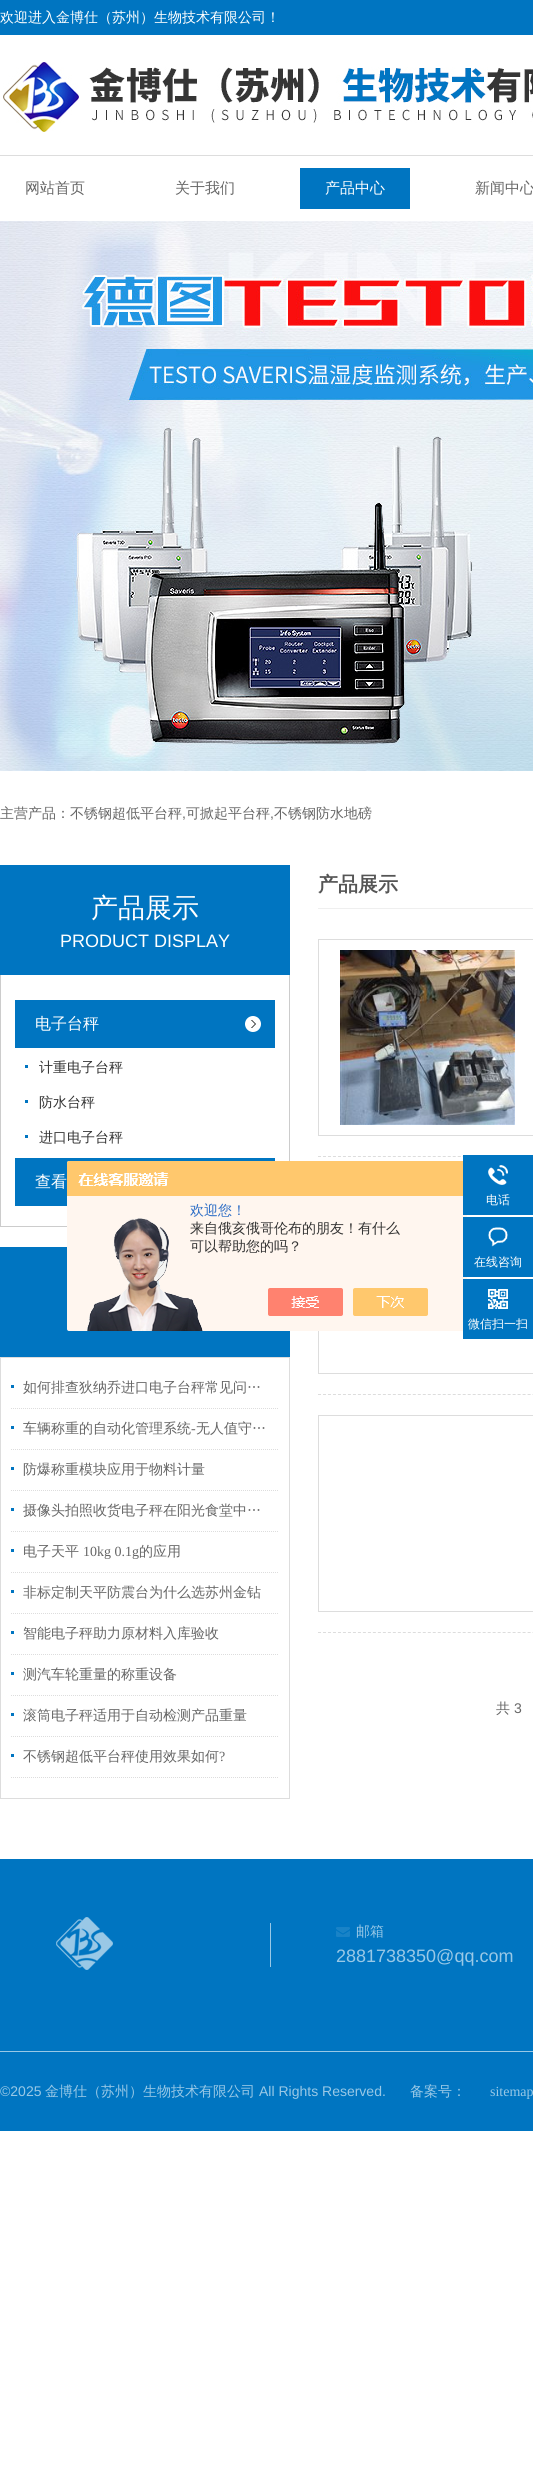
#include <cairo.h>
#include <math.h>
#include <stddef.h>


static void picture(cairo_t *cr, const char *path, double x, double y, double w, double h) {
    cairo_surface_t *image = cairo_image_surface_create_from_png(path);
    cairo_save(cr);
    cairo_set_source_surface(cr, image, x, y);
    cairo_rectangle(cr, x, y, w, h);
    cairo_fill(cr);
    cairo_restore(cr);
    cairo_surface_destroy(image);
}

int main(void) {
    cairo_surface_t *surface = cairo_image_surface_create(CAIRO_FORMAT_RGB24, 533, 2492);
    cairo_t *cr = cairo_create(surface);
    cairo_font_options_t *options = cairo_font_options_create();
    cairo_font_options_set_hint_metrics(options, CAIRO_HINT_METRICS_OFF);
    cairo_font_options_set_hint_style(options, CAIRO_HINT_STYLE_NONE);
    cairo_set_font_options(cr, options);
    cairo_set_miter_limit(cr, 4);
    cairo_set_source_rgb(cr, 1, 1, 1);
    cairo_paint(cr);
    cairo_set_source_rgb(cr, 0, 0.459, 0.757);
    cairo_rectangle(cr, 0, 0, 533, 35);
    cairo_fill(cr);
    cairo_select_font_face(cr, "WenQuanYi Zen Hei Medium", CAIRO_FONT_SLANT_NORMAL, CAIRO_FONT_WEIGHT_NORMAL);
    cairo_set_font_size(cr, 14);
    cairo_set_source_rgb(cr, 1, 1, 1);
    cairo_move_to(cr, 0, 22);
    cairo_show_text(cr, "欢迎进入金博仕（苏州）生物技术有限公司！");
    picture(cr, "img1.png", 3, 62, 530, 70);
    cairo_set_source_rgb(cr, 0.867, 0.867, 0.867);
    cairo_rectangle(cr, 0, 155, 533, 1);
    cairo_fill(cr);
    cairo_set_font_size(cr, 15);
    cairo_set_source_rgb(cr, 0.4, 0.4, 0.4);
    cairo_move_to(cr, 25, 193);
    cairo_show_text(cr, "网站首页");
    cairo_move_to(cr, 175, 193);
    cairo_show_text(cr, "关于我们");
    cairo_set_source_rgb(cr, 0, 0.459, 0.757);
    cairo_rectangle(cr, 300, 168, 110, 41);
    cairo_fill(cr);
    cairo_set_source_rgb(cr, 1, 1, 1);
    cairo_move_to(cr, 325, 193);
    cairo_show_text(cr, "产品中心");
    cairo_set_source_rgb(cr, 0.4, 0.4, 0.4);
    cairo_move_to(cr, 475, 193);
    cairo_show_text(cr, "新闻中心");
    picture(cr, "img2.png", 0, 221, 533, 550);
    cairo_set_font_size(cr, 14);
    cairo_move_to(cr, 0, 818);
    cairo_show_text(cr, "主营产品：不锈钢超低平台秤");
    cairo_select_font_face(cr, "Liberation Sans", CAIRO_FONT_SLANT_NORMAL, CAIRO_FONT_WEIGHT_NORMAL);
    cairo_move_to(cr, 182, 818);
    cairo_show_text(cr, ",");
    cairo_select_font_face(cr, "WenQuanYi Zen Hei Medium", CAIRO_FONT_SLANT_NORMAL, CAIRO_FONT_WEIGHT_NORMAL);
    cairo_move_to(cr, 186, 818);
    cairo_show_text(cr, "可掀起平台秤");
    cairo_select_font_face(cr, "Liberation Sans", CAIRO_FONT_SLANT_NORMAL, CAIRO_FONT_WEIGHT_NORMAL);
    cairo_move_to(cr, 270, 818);
    cairo_show_text(cr, ",");
    cairo_select_font_face(cr, "WenQuanYi Zen Hei Medium", CAIRO_FONT_SLANT_NORMAL, CAIRO_FONT_WEIGHT_NORMAL);
    cairo_move_to(cr, 274, 818);
    cairo_show_text(cr, "不锈钢防水地磅");
    cairo_set_source_rgb(cr, 0, 0.459, 0.757);
    cairo_rectangle(cr, 0, 865, 290, 110);
    cairo_fill(cr);
    cairo_set_font_size(cr, 27);
    cairo_set_source_rgb(cr, 1, 1, 1);
    cairo_move_to(cr, 91, 917);
    cairo_show_text(cr, "产品展示");
    cairo_select_font_face(cr, "Liberation Sans", CAIRO_FONT_SLANT_NORMAL, CAIRO_FONT_WEIGHT_NORMAL);
    cairo_set_font_size(cr, 18);
    cairo_move_to(cr, 60, 947);
    cairo_show_text(cr, "PRODUCT DISPLAY");
    cairo_set_source_rgb(cr, 0.8, 0.8, 0.8);
    cairo_rectangle(cr, 289, 975, 1, 186);
    cairo_fill(cr);
    cairo_rectangle(cr, 0, 1226, 67, 1);
    cairo_fill(cr);
    cairo_rectangle(cr, 0, 975, 1, 252);
    cairo_fill(cr);
    cairo_set_source_rgb(cr, 0, 0.459, 0.757);
    cairo_rectangle(cr, 15, 1000, 260, 48);
    cairo_fill(cr);
    picture(cr, "img3.png", 245, 1016, 16, 16);
    cairo_select_font_face(cr, "WenQuanYi Zen Hei Medium", CAIRO_FONT_SLANT_NORMAL, CAIRO_FONT_WEIGHT_NORMAL);
    cairo_set_font_size(cr, 16);
    cairo_set_source_rgb(cr, 1, 1, 1);
    cairo_move_to(cr, 35, 1029);
    cairo_show_text(cr, "电子台秤");
    cairo_set_source_rgb(cr, 0, 0.459, 0.757);
    cairo_rectangle(cr, 25, 1065, 3, 3);
    cairo_fill(cr);
    cairo_set_font_size(cr, 14);
    cairo_set_source_rgb(cr, 0.2, 0.2, 0.2);
    cairo_move_to(cr, 39, 1072);
    cairo_show_text(cr, "计重电子台秤");
    cairo_set_source_rgb(cr, 0, 0.459, 0.757);
    cairo_rectangle(cr, 25, 1100, 3, 3);
    cairo_fill(cr);
    cairo_set_source_rgb(cr, 0.2, 0.2, 0.2);
    cairo_move_to(cr, 39, 1107);
    cairo_show_text(cr, "防水台秤");
    cairo_set_source_rgb(cr, 0, 0.459, 0.757);
    cairo_rectangle(cr, 25, 1135, 3, 3);
    cairo_fill(cr);
    cairo_set_source_rgb(cr, 0.2, 0.2, 0.2);
    cairo_move_to(cr, 39, 1142);
    cairo_show_text(cr, "进口电子台秤");
    cairo_set_source_rgb(cr, 0, 0.459, 0.757);
    cairo_rectangle(cr, 15, 1158, 260, 48);
    cairo_fill(cr);
    cairo_set_font_size(cr, 16);
    cairo_set_source_rgb(cr, 1, 1, 1);
    cairo_move_to(cr, 35, 1187);
    cairo_show_text(cr, "查看");
    cairo_set_source_rgb(cr, 0, 0.459, 0.757);
    cairo_rectangle(cr, 0, 1247, 290, 110);
    cairo_fill(cr);
    cairo_rectangle(cr, 0.5, 1357.5, 289, 441);
    cairo_set_source_rgb(cr, 0.867, 0.867, 0.867);
    cairo_set_line_width(cr, 1);
    cairo_stroke(cr);
    cairo_new_path(cr);
    cairo_move_to(cr, 11, 1408.5);
    cairo_line_to(cr, 279, 1408.5);
    cairo_set_dash(cr, (double[]){1, 1}, 2, 0);
    cairo_stroke(cr);
    cairo_set_source_rgb(cr, 0, 0.459, 0.757);
    cairo_rectangle(cr, 11, 1385, 3, 3);
    cairo_fill(cr);
    cairo_set_font_size(cr, 14);
    cairo_set_source_rgb(cr, 0.4, 0.4, 0.4);
    cairo_move_to(cr, 23, 1392);
    cairo_show_text(cr, "如何排查狄纳乔进口电子台秤常见问…");
    cairo_new_path(cr);
    cairo_move_to(cr, 11, 1449.5);
    cairo_line_to(cr, 279, 1449.5);
    cairo_set_source_rgb(cr, 0.867, 0.867, 0.867);
    cairo_stroke(cr);
    cairo_set_source_rgb(cr, 0, 0.459, 0.757);
    cairo_rectangle(cr, 11, 1426, 3, 3);
    cairo_fill(cr);
    cairo_set_source_rgb(cr, 0.4, 0.4, 0.4);
    cairo_move_to(cr, 23, 1433);
    cairo_show_text(cr, "车辆称重的自动化管理系统");
    cairo_select_font_face(cr, "Liberation Serif", CAIRO_FONT_SLANT_NORMAL, CAIRO_FONT_WEIGHT_NORMAL);
    cairo_move_to(cr, 191, 1433);
    cairo_show_text(cr, "-");
    cairo_select_font_face(cr, "WenQuanYi Zen Hei Medium", CAIRO_FONT_SLANT_NORMAL, CAIRO_FONT_WEIGHT_NORMAL);
    cairo_move_to(cr, 196, 1433);
    cairo_show_text(cr, "无人值守…");
    cairo_new_path(cr);
    cairo_move_to(cr, 11, 1490.5);
    cairo_line_to(cr, 279, 1490.5);
    cairo_set_source_rgb(cr, 0.867, 0.867, 0.867);
    cairo_stroke(cr);
    cairo_set_source_rgb(cr, 0, 0.459, 0.757);
    cairo_rectangle(cr, 11, 1467, 3, 3);
    cairo_fill(cr);
    cairo_set_source_rgb(cr, 0.4, 0.4, 0.4);
    cairo_move_to(cr, 23, 1474);
    cairo_show_text(cr, "防爆称重模块应用于物料计量");
    cairo_new_path(cr);
    cairo_move_to(cr, 11, 1531.5);
    cairo_line_to(cr, 279, 1531.5);
    cairo_set_source_rgb(cr, 0.867, 0.867, 0.867);
    cairo_stroke(cr);
    cairo_set_source_rgb(cr, 0, 0.459, 0.757);
    cairo_rectangle(cr, 11, 1508, 3, 3);
    cairo_fill(cr);
    cairo_set_source_rgb(cr, 0.4, 0.4, 0.4);
    cairo_move_to(cr, 23, 1515);
    cairo_show_text(cr, "摄像头拍照收货电子秤在阳光食堂中…");
    cairo_new_path(cr);
    cairo_move_to(cr, 11, 1572.5);
    cairo_line_to(cr, 279, 1572.5);
    cairo_set_source_rgb(cr, 0.867, 0.867, 0.867);
    cairo_stroke(cr);
    cairo_set_source_rgb(cr, 0, 0.459, 0.757);
    cairo_rectangle(cr, 11, 1549, 3, 3);
    cairo_fill(cr);
    cairo_set_source_rgb(cr, 0.4, 0.4, 0.4);
    cairo_move_to(cr, 23, 1556);
    cairo_show_text(cr, "电子天平");
    cairo_select_font_face(cr, "Liberation Serif", CAIRO_FONT_SLANT_NORMAL, CAIRO_FONT_WEIGHT_NORMAL);
    cairo_move_to(cr, 83, 1556);
    cairo_show_text(cr, "10kg 0.1g");
    cairo_select_font_face(cr, "WenQuanYi Zen Hei Medium", CAIRO_FONT_SLANT_NORMAL, CAIRO_FONT_WEIGHT_NORMAL);
    cairo_move_to(cr, 139, 1556);
    cairo_show_text(cr, "的应用");
    cairo_new_path(cr);
    cairo_move_to(cr, 11, 1613.5);
    cairo_line_to(cr, 279, 1613.5);
    cairo_set_source_rgb(cr, 0.867, 0.867, 0.867);
    cairo_stroke(cr);
    cairo_set_source_rgb(cr, 0, 0.459, 0.757);
    cairo_rectangle(cr, 11, 1590, 3, 3);
    cairo_fill(cr);
    cairo_set_source_rgb(cr, 0.4, 0.4, 0.4);
    cairo_move_to(cr, 23, 1597);
    cairo_show_text(cr, "非标定制天平防震台为什么选苏州金钻");
    cairo_new_path(cr);
    cairo_move_to(cr, 11, 1654.5);
    cairo_line_to(cr, 279, 1654.5);
    cairo_set_source_rgb(cr, 0.867, 0.867, 0.867);
    cairo_stroke(cr);
    cairo_set_source_rgb(cr, 0, 0.459, 0.757);
    cairo_rectangle(cr, 11, 1631, 3, 3);
    cairo_fill(cr);
    cairo_set_source_rgb(cr, 0.4, 0.4, 0.4);
    cairo_move_to(cr, 23, 1638);
    cairo_show_text(cr, "智能电子秤助力原材料入库验收");
    cairo_new_path(cr);
    cairo_move_to(cr, 11, 1695.5);
    cairo_line_to(cr, 279, 1695.5);
    cairo_set_source_rgb(cr, 0.867, 0.867, 0.867);
    cairo_stroke(cr);
    cairo_set_source_rgb(cr, 0, 0.459, 0.757);
    cairo_rectangle(cr, 11, 1672, 3, 3);
    cairo_fill(cr);
    cairo_set_source_rgb(cr, 0.4, 0.4, 0.4);
    cairo_move_to(cr, 23, 1679);
    cairo_show_text(cr, "测汽车轮重量的称重设备");
    cairo_new_path(cr);
    cairo_move_to(cr, 11, 1736.5);
    cairo_line_to(cr, 279, 1736.5);
    cairo_set_source_rgb(cr, 0.867, 0.867, 0.867);
    cairo_stroke(cr);
    cairo_set_source_rgb(cr, 0, 0.459, 0.757);
    cairo_rectangle(cr, 11, 1713, 3, 3);
    cairo_fill(cr);
    cairo_set_source_rgb(cr, 0.4, 0.4, 0.4);
    cairo_move_to(cr, 23, 1720);
    cairo_show_text(cr, "滚筒电子秤适用于自动检测产品重量");
    cairo_new_path(cr);
    cairo_move_to(cr, 11, 1777.5);
    cairo_line_to(cr, 279, 1777.5);
    cairo_set_source_rgb(cr, 0.867, 0.867, 0.867);
    cairo_stroke(cr);
    cairo_set_source_rgb(cr, 0, 0.459, 0.757);
    cairo_rectangle(cr, 11, 1754, 3, 3);
    cairo_fill(cr);
    cairo_set_source_rgb(cr, 0.4, 0.4, 0.4);
    cairo_move_to(cr, 23, 1761);
    cairo_show_text(cr, "不锈钢超低平台秤使用效果如何");
    cairo_select_font_face(cr, "Liberation Serif", CAIRO_FONT_SLANT_NORMAL, CAIRO_FONT_WEIGHT_NORMAL);
    cairo_move_to(cr, 219, 1761);
    cairo_show_text(cr, "?");
    cairo_set_source_rgb(cr, 0.937, 0.937, 0.937);
    cairo_rectangle(cr, 318, 908, 215, 1);
    cairo_fill(cr);
    cairo_select_font_face(cr, "WenQuanYi Zen Hei", CAIRO_FONT_SLANT_NORMAL, CAIRO_FONT_WEIGHT_BOLD);
    cairo_set_font_size(cr, 20);
    cairo_set_source_rgb(cr, 0.333, 0.333, 0.333);
    cairo_move_to(cr, 318, 891);
    cairo_show_text(cr, "产品展示");
    cairo_new_path(cr);
    cairo_move_to(cr, 318, 1156.5);
    cairo_line_to(cr, 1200, 1156.5);
    cairo_set_source_rgb(cr, 0.867, 0.867, 0.867);
    cairo_set_dash(cr, (double[]){3, 1.99}, 2, 0);
    cairo_stroke(cr);
    cairo_rectangle(cr, 318.5, 939.5, 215, 196);
    cairo_set_dash(cr, NULL, 0, 0);
    cairo_stroke(cr);
    picture(cr, "img4.png", 340, 950, 175, 175);
    cairo_new_path(cr);
    cairo_move_to(cr, 318, 1394.5);
    cairo_line_to(cr, 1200, 1394.5);
    cairo_set_dash(cr, (double[]){3, 1.99}, 2, 0);
    cairo_stroke(cr);
    cairo_rectangle(cr, 318.5, 1177.5, 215, 196);
    cairo_set_dash(cr, NULL, 0, 0);
    cairo_stroke(cr);
    cairo_new_path(cr);
    cairo_move_to(cr, 318, 1632.5);
    cairo_line_to(cr, 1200, 1632.5);
    cairo_set_dash(cr, (double[]){3, 1.99}, 2, 0);
    cairo_stroke(cr);
    cairo_rectangle(cr, 318.5, 1415.5, 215, 196);
    cairo_set_dash(cr, NULL, 0, 0);
    cairo_stroke(cr);
    cairo_select_font_face(cr, "WenQuanYi Zen Hei Medium", CAIRO_FONT_SLANT_NORMAL, CAIRO_FONT_WEIGHT_NORMAL);
    cairo_set_font_size(cr, 14);
    cairo_set_source_rgb(cr, 0.4, 0.4, 0.4);
    cairo_move_to(cr, 496, 1713);
    cairo_show_text(cr, "共");
    cairo_select_font_face(cr, "Liberation Sans", CAIRO_FONT_SLANT_NORMAL, CAIRO_FONT_WEIGHT_NORMAL);
    cairo_move_to(cr, 514, 1713);
    cairo_show_text(cr, "3");
    picture(cr, "img5.png", 67, 1161, 400, 170);
    cairo_select_font_face(cr, "WenQuanYi Zen Hei Medium", CAIRO_FONT_SLANT_NORMAL, CAIRO_FONT_WEIGHT_NORMAL);
    cairo_set_source_rgb(cr, 0.18, 0.431, 0.776);
    cairo_move_to(cr, 190, 1215);
    cairo_show_text(cr, "欢迎您！");
    cairo_set_source_rgb(cr, 0.2, 0.2, 0.2);
    cairo_move_to(cr, 190, 1233);
    cairo_show_text(cr, "来自俄亥俄哥伦布的朋友！有什么");
    cairo_move_to(cr, 190, 1251);
    cairo_show_text(cr, "可以帮助您的吗？");
    cairo_set_source_rgb(cr, 0, 0.459, 0.757);
    cairo_rectangle(cr, 463, 1155, 70, 60);
    cairo_fill(cr);
    picture(cr, "img6.png", 488, 1165, 20, 20);
    cairo_set_font_size(cr, 12);
    cairo_set_source_rgb(cr, 1, 1, 1);
    cairo_move_to(cr, 486, 1204);
    cairo_show_text(cr, "电话");
    cairo_set_source_rgb(cr, 0, 0.459, 0.757);
    cairo_rectangle(cr, 463, 1217, 70, 60);
    cairo_fill(cr);
    picture(cr, "img7.png", 488, 1227, 20, 20);
    cairo_set_source_rgb(cr, 1, 1, 1);
    cairo_move_to(cr, 474, 1266);
    cairo_show_text(cr, "在线咨询");
    cairo_set_source_rgb(cr, 0, 0.459, 0.757);
    cairo_rectangle(cr, 463, 1279, 70, 60);
    cairo_fill(cr);
    picture(cr, "img8.png", 488, 1289, 20, 20);
    cairo_set_source_rgb(cr, 1, 1, 1);
    cairo_move_to(cr, 468, 1328);
    cairo_show_text(cr, "微信扫一扫");
    cairo_set_source_rgb(cr, 0, 0.459, 0.757);
    cairo_rectangle(cr, 0, 1859, 533, 272);
    cairo_fill(cr);
    picture(cr, "img9.png", 56, 1917, 57, 53);
    cairo_set_source_rgb(cr, 0.6, 0.784, 0.902);
    cairo_rectangle(cr, 270, 1923, 1, 44);
    cairo_fill(cr);
    picture(cr, "img10.png", 336, 1927, 14, 10);
    cairo_set_font_size(cr, 14);
    cairo_move_to(cr, 356, 1936);
    cairo_show_text(cr, "邮箱");
    cairo_select_font_face(cr, "Liberation Sans", CAIRO_FONT_SLANT_NORMAL, CAIRO_FONT_WEIGHT_NORMAL);
    cairo_set_font_size(cr, 18);
    cairo_move_to(cr, 336, 1962);
    cairo_show_text(cr, "2881738350@qq.com");
    cairo_rectangle(cr, 0, 2051, 533, 1);
    cairo_fill(cr);
    cairo_set_font_size(cr, 14);
    cairo_move_to(cr, 0, 2096);
    cairo_show_text(cr, "©2025");
    cairo_select_font_face(cr, "WenQuanYi Zen Hei Medium", CAIRO_FONT_SLANT_NORMAL, CAIRO_FONT_WEIGHT_NORMAL);
    cairo_move_to(cr, 45, 2096);
    cairo_show_text(cr, "金博仕（苏州）生物技术有限公司");
    cairo_select_font_face(cr, "Liberation Sans", CAIRO_FONT_SLANT_NORMAL, CAIRO_FONT_WEIGHT_NORMAL);
    cairo_move_to(cr, 259, 2096);
    cairo_show_text(cr, "All Rights Reserved.");
    cairo_select_font_face(cr, "WenQuanYi Zen Hei Medium", CAIRO_FONT_SLANT_NORMAL, CAIRO_FONT_WEIGHT_NORMAL);
    cairo_move_to(cr, 410, 2096);
    cairo_show_text(cr, "备案号：");
    cairo_select_font_face(cr, "Liberation Serif", CAIRO_FONT_SLANT_NORMAL, CAIRO_FONT_WEIGHT_NORMAL);
    cairo_move_to(cr, 490, 2096);
    cairo_show_text(cr, "sitemap");
    cairo_surface_write_to_png(surface, "page.png");
    cairo_font_options_destroy(options);
    cairo_destroy(cr);
    cairo_surface_destroy(surface);
    return 0;
}
